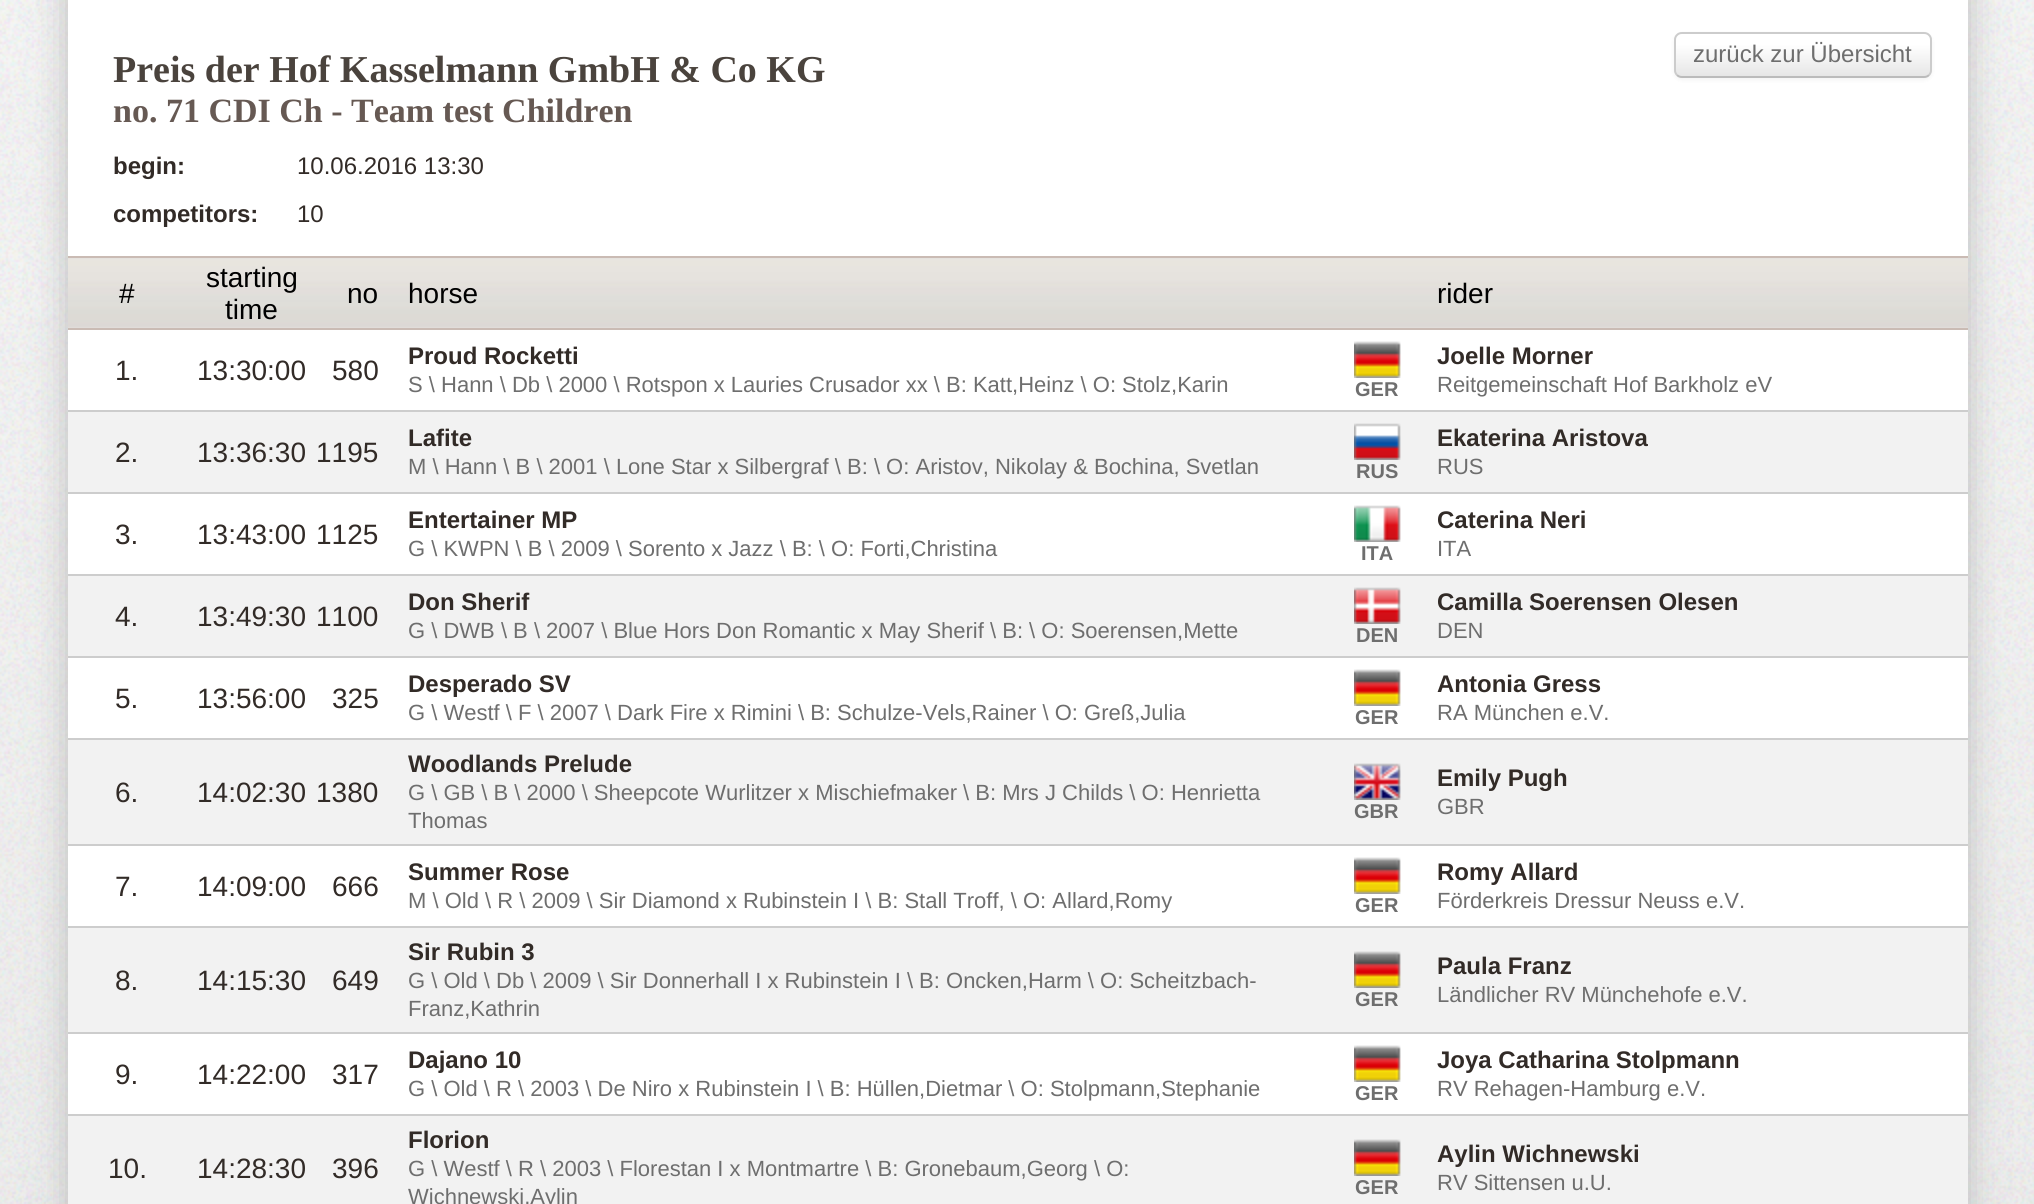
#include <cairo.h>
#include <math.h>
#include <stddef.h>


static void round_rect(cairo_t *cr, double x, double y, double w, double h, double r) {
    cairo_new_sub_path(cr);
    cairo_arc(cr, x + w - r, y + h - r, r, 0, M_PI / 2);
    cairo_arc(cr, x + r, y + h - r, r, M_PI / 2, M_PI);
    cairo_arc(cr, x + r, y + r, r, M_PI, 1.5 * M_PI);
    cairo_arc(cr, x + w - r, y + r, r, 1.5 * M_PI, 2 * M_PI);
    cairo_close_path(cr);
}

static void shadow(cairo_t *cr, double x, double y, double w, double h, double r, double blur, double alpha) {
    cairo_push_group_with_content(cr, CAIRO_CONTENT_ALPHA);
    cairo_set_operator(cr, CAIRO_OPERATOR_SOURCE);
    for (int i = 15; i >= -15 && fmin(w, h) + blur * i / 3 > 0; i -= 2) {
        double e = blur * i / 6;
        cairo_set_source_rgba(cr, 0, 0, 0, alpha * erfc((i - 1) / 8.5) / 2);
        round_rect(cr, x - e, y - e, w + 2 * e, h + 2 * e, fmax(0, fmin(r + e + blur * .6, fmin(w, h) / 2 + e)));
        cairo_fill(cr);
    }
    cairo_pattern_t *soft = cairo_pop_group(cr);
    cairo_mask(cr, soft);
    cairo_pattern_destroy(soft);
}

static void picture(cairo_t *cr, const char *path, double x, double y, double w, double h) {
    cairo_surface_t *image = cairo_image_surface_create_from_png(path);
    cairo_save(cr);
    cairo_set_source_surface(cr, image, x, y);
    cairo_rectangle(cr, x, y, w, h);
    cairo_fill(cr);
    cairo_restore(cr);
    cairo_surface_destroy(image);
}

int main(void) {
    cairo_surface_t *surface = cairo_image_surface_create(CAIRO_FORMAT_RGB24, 2034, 1204);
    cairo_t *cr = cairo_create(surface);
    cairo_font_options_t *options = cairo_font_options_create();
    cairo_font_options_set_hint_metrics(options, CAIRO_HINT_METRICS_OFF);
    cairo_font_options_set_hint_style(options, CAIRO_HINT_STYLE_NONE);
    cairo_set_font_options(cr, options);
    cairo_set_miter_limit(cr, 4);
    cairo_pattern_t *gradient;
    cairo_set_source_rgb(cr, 1, 1, 1);
    cairo_paint(cr);
    picture(cr, "img1.png", 0, 0, 2034, 1204);
    cairo_set_source_rgb(cr, 0.745, 0.745, 0.745);
    shadow(cr, 68, -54, 1900, 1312, 0, 18, 1);
    cairo_set_source_rgb(cr, 1, 1, 1);
    cairo_rectangle(cr, 68, 0, 1900, 1114);
    cairo_fill(cr);
    cairo_set_source_rgb(cr, 0, 0, 0);
    shadow(cr, 1674, 34, 258, 46, 8, 2, 0.05);
    cairo_save(cr);
    round_rect(cr, 1674, 32, 258, 46, 8);
    cairo_clip(cr);
    gradient = cairo_pattern_create_linear(1803, 34, 1803, 76);
    cairo_pattern_add_color_stop_rgba(gradient, 0, 1, 1, 1, 1);
    cairo_pattern_add_color_stop_rgba(gradient, 0.25, 1, 1, 1, 1);
    cairo_pattern_add_color_stop_rgba(gradient, 1, 0.902, 0.902, 0.902, 1);
    cairo_set_source(cr, gradient);
    cairo_pattern_destroy(gradient);
    cairo_rectangle(cr, 1676, 34, 254, 42);
    cairo_fill(cr);
    cairo_restore(cr);
    cairo_new_path(cr);
    cairo_move_to(cr, 1929, 75);
    cairo_curve_to(cr, 1927.5, 76.5, 1926, 77, 1924, 77);
    cairo_line_to(cr, 1682, 77);
    cairo_curve_to(cr, 1680, 77, 1678.5, 76.5, 1677, 75);
    cairo_set_source_rgb(cr, 0.733, 0.733, 0.733);
    cairo_stroke(cr);
    cairo_new_path(cr);
    cairo_move_to(cr, 1677, 75);
    cairo_curve_to(cr, 1675.5, 73.5, 1675, 72, 1675, 70);
    cairo_line_to(cr, 1675, 40);
    cairo_curve_to(cr, 1675, 38, 1675.5, 36.5, 1677, 35);
    cairo_curve_to(cr, 1678.5, 33.5, 1680, 33, 1682, 33);
    cairo_line_to(cr, 1924, 33);
    cairo_curve_to(cr, 1926, 33, 1927.5, 33.5, 1929, 35);
    cairo_curve_to(cr, 1930.5, 36.5, 1931, 38, 1931, 40);
    cairo_line_to(cr, 1931, 70);
    cairo_curve_to(cr, 1931, 72, 1930.5, 73.5, 1929, 75);
    cairo_set_source_rgb(cr, 0.8, 0.8, 0.8);
    cairo_stroke(cr);
    cairo_select_font_face(cr, "Liberation Sans", CAIRO_FONT_SLANT_NORMAL, CAIRO_FONT_WEIGHT_NORMAL);
    cairo_set_font_size(cr, 24);
    cairo_set_source_rgb(cr, 0.431, 0.431, 0.431);
    cairo_move_to(cr, 1693, 62);
    cairo_show_text(cr, "zurück zur Übersicht");
    cairo_select_font_face(cr, "Liberation Serif", CAIRO_FONT_SLANT_NORMAL, CAIRO_FONT_WEIGHT_BOLD);
    cairo_set_font_size(cr, 38);
    cairo_set_source_rgb(cr, 0.29, 0.263, 0.239);
    cairo_move_to(cr, 113, 82);
    cairo_show_text(cr, "Preis der Hof Kasselmann GmbH & Co KG");
    cairo_set_font_size(cr, 34);
    cairo_set_source_rgb(cr, 0.4, 0.349, 0.325);
    cairo_move_to(cr, 113, 122);
    cairo_show_text(cr, "no. 71 CDI Ch - Team test Children");
    cairo_select_font_face(cr, "Liberation Sans", CAIRO_FONT_SLANT_NORMAL, CAIRO_FONT_WEIGHT_BOLD);
    cairo_set_font_size(cr, 24);
    cairo_set_source_rgb(cr, 0.196, 0.169, 0.153);
    cairo_move_to(cr, 113, 174);
    cairo_show_text(cr, "begin:");
    cairo_select_font_face(cr, "Liberation Sans", CAIRO_FONT_SLANT_NORMAL, CAIRO_FONT_WEIGHT_NORMAL);
    cairo_move_to(cr, 297, 174);
    cairo_show_text(cr, "10.06.2016 13:30");
    cairo_select_font_face(cr, "Liberation Sans", CAIRO_FONT_SLANT_NORMAL, CAIRO_FONT_WEIGHT_BOLD);
    cairo_move_to(cr, 113, 222);
    cairo_show_text(cr, "competitors:");
    cairo_select_font_face(cr, "Liberation Sans", CAIRO_FONT_SLANT_NORMAL, CAIRO_FONT_WEIGHT_NORMAL);
    cairo_move_to(cr, 297, 222);
    cairo_show_text(cr, "10");
    picture(cr, "img2.png", 68, 258, 120, 70);
    cairo_set_source_rgb(cr, 0.792, 0.733, 0.706);
    cairo_rectangle(cr, 68, 256, 1900, 2);
    cairo_fill(cr);
    cairo_rectangle(cr, 68, 328, 1900, 2);
    cairo_fill(cr);
    cairo_set_font_size(cr, 28);
    cairo_set_source_rgb(cr, 0, 0, 0);
    cairo_move_to(cr, 119, 303);
    cairo_show_text(cr, "#");
    picture(cr, "img3.png", 188, 258, 128, 70);
    cairo_move_to(cr, 206, 287);
    cairo_show_text(cr, "starting");
    cairo_move_to(cr, 225, 319);
    cairo_show_text(cr, "time");
    picture(cr, "img4.png", 316, 258, 92, 70);
    cairo_move_to(cr, 347, 303);
    cairo_show_text(cr, "no");
    picture(cr, "img5.png", 408, 258, 910, 70);
    cairo_move_to(cr, 408, 303);
    cairo_show_text(cr, "horse");
    picture(cr, "img6.png", 1318, 258, 120, 70);
    picture(cr, "img7.png", 1438, 258, 530, 70);
    cairo_move_to(cr, 1437, 303);
    cairo_show_text(cr, "rider");
    cairo_set_source_rgb(cr, 0.804, 0.804, 0.804);
    cairo_rectangle(cr, 68, 410, 1900, 2);
    cairo_fill(cr);
    cairo_set_source_rgb(cr, 0.196, 0.169, 0.153);
    cairo_move_to(cr, 115, 380);
    cairo_show_text(cr, "1.");
    cairo_move_to(cr, 197, 380);
    cairo_show_text(cr, "13:30:00");
    cairo_move_to(cr, 332, 380);
    cairo_show_text(cr, "580");
    cairo_select_font_face(cr, "Liberation Sans", CAIRO_FONT_SLANT_NORMAL, CAIRO_FONT_WEIGHT_BOLD);
    cairo_set_font_size(cr, 24);
    cairo_move_to(cr, 408, 364);
    cairo_show_text(cr, "Proud Rocketti");
    cairo_select_font_face(cr, "Liberation Sans", CAIRO_FONT_SLANT_NORMAL, CAIRO_FONT_WEIGHT_NORMAL);
    cairo_set_font_size(cr, 22);
    cairo_set_source_rgb(cr, 0.431, 0.431, 0.431);
    cairo_move_to(cr, 408, 392);
    cairo_show_text(cr, "S \\ Hann \\ Db \\ 2000 \\ Rotspon x Lauries Crusador xx \\ B: Katt,Heinz \\ O: Stolz,Karin");
    cairo_select_font_face(cr, "Liberation Sans", CAIRO_FONT_SLANT_NORMAL, CAIRO_FONT_WEIGHT_BOLD);
    cairo_set_font_size(cr, 24);
    cairo_set_source_rgb(cr, 0.196, 0.169, 0.153);
    cairo_move_to(cr, 1437, 364);
    cairo_show_text(cr, "Joelle Morner");
    cairo_select_font_face(cr, "Liberation Sans", CAIRO_FONT_SLANT_NORMAL, CAIRO_FONT_WEIGHT_NORMAL);
    cairo_set_font_size(cr, 22);
    cairo_set_source_rgb(cr, 0.431, 0.431, 0.431);
    cairo_move_to(cr, 1437, 392);
    cairo_show_text(cr, "Reitgemeinschaft Hof Barkholz eV");
    picture(cr, "img8.png", 1354, 341, 47, 37);
    cairo_select_font_face(cr, "Liberation Sans", CAIRO_FONT_SLANT_NORMAL, CAIRO_FONT_WEIGHT_BOLD);
    cairo_set_font_size(cr, 20);
    cairo_move_to(cr, 1355, 396);
    cairo_show_text(cr, "GER");
    cairo_set_source_rgb(cr, 0.949, 0.949, 0.949);
    cairo_rectangle(cr, 68, 412, 1900, 80);
    cairo_fill(cr);
    cairo_set_source_rgb(cr, 0.804, 0.804, 0.804);
    cairo_rectangle(cr, 68, 492, 1900, 2);
    cairo_fill(cr);
    cairo_select_font_face(cr, "Liberation Sans", CAIRO_FONT_SLANT_NORMAL, CAIRO_FONT_WEIGHT_NORMAL);
    cairo_set_font_size(cr, 28);
    cairo_set_source_rgb(cr, 0.196, 0.169, 0.153);
    cairo_move_to(cr, 115, 462);
    cairo_show_text(cr, "2.");
    cairo_move_to(cr, 197, 462);
    cairo_show_text(cr, "13:36:30");
    cairo_move_to(cr, 316, 462);
    cairo_show_text(cr, "1195");
    cairo_select_font_face(cr, "Liberation Sans", CAIRO_FONT_SLANT_NORMAL, CAIRO_FONT_WEIGHT_BOLD);
    cairo_set_font_size(cr, 24);
    cairo_move_to(cr, 408, 446);
    cairo_show_text(cr, "Lafite");
    cairo_select_font_face(cr, "Liberation Sans", CAIRO_FONT_SLANT_NORMAL, CAIRO_FONT_WEIGHT_NORMAL);
    cairo_set_font_size(cr, 22);
    cairo_set_source_rgb(cr, 0.431, 0.431, 0.431);
    cairo_move_to(cr, 408, 474);
    cairo_show_text(cr, "M \\ Hann \\ B \\ 2001 \\ Lone Star x Silbergraf \\ B: \\ O: Aristov, Nikolay & Bochina, Svetlan");
    cairo_select_font_face(cr, "Liberation Sans", CAIRO_FONT_SLANT_NORMAL, CAIRO_FONT_WEIGHT_BOLD);
    cairo_set_font_size(cr, 24);
    cairo_set_source_rgb(cr, 0.196, 0.169, 0.153);
    cairo_move_to(cr, 1437, 446);
    cairo_show_text(cr, "Ekaterina Aristova");
    cairo_select_font_face(cr, "Liberation Sans", CAIRO_FONT_SLANT_NORMAL, CAIRO_FONT_WEIGHT_NORMAL);
    cairo_set_font_size(cr, 22);
    cairo_set_source_rgb(cr, 0.431, 0.431, 0.431);
    cairo_move_to(cr, 1437, 474);
    cairo_show_text(cr, "RUS");
    picture(cr, "img9.png", 1354, 423, 47, 37);
    cairo_select_font_face(cr, "Liberation Sans", CAIRO_FONT_SLANT_NORMAL, CAIRO_FONT_WEIGHT_BOLD);
    cairo_set_font_size(cr, 20);
    cairo_move_to(cr, 1356, 478);
    cairo_show_text(cr, "RUS");
    cairo_set_source_rgb(cr, 0.804, 0.804, 0.804);
    cairo_rectangle(cr, 68, 574, 1900, 2);
    cairo_fill(cr);
    cairo_select_font_face(cr, "Liberation Sans", CAIRO_FONT_SLANT_NORMAL, CAIRO_FONT_WEIGHT_NORMAL);
    cairo_set_font_size(cr, 28);
    cairo_set_source_rgb(cr, 0.196, 0.169, 0.153);
    cairo_move_to(cr, 115, 544);
    cairo_show_text(cr, "3.");
    cairo_move_to(cr, 197, 544);
    cairo_show_text(cr, "13:43:00");
    cairo_move_to(cr, 316, 544);
    cairo_show_text(cr, "1125");
    cairo_select_font_face(cr, "Liberation Sans", CAIRO_FONT_SLANT_NORMAL, CAIRO_FONT_WEIGHT_BOLD);
    cairo_set_font_size(cr, 24);
    cairo_move_to(cr, 408, 528);
    cairo_show_text(cr, "Entertainer MP");
    cairo_select_font_face(cr, "Liberation Sans", CAIRO_FONT_SLANT_NORMAL, CAIRO_FONT_WEIGHT_NORMAL);
    cairo_set_font_size(cr, 22);
    cairo_set_source_rgb(cr, 0.431, 0.431, 0.431);
    cairo_move_to(cr, 408, 556);
    cairo_show_text(cr, "G \\ KWPN \\ B \\ 2009 \\ Sorento x Jazz \\ B: \\ O: Forti,Christina");
    cairo_select_font_face(cr, "Liberation Sans", CAIRO_FONT_SLANT_NORMAL, CAIRO_FONT_WEIGHT_BOLD);
    cairo_set_font_size(cr, 24);
    cairo_set_source_rgb(cr, 0.196, 0.169, 0.153);
    cairo_move_to(cr, 1437, 528);
    cairo_show_text(cr, "Caterina Neri");
    cairo_select_font_face(cr, "Liberation Sans", CAIRO_FONT_SLANT_NORMAL, CAIRO_FONT_WEIGHT_NORMAL);
    cairo_set_font_size(cr, 22);
    cairo_set_source_rgb(cr, 0.431, 0.431, 0.431);
    cairo_move_to(cr, 1437, 556);
    cairo_show_text(cr, "ITA");
    picture(cr, "img10.png", 1354, 505, 47, 37);
    cairo_select_font_face(cr, "Liberation Sans", CAIRO_FONT_SLANT_NORMAL, CAIRO_FONT_WEIGHT_BOLD);
    cairo_set_font_size(cr, 20);
    cairo_move_to(cr, 1361, 560);
    cairo_show_text(cr, "ITA");
    cairo_set_source_rgb(cr, 0.949, 0.949, 0.949);
    cairo_rectangle(cr, 68, 576, 1900, 80);
    cairo_fill(cr);
    cairo_set_source_rgb(cr, 0.804, 0.804, 0.804);
    cairo_rectangle(cr, 68, 656, 1900, 2);
    cairo_fill(cr);
    cairo_select_font_face(cr, "Liberation Sans", CAIRO_FONT_SLANT_NORMAL, CAIRO_FONT_WEIGHT_NORMAL);
    cairo_set_font_size(cr, 28);
    cairo_set_source_rgb(cr, 0.196, 0.169, 0.153);
    cairo_move_to(cr, 115, 626);
    cairo_show_text(cr, "4.");
    cairo_move_to(cr, 197, 626);
    cairo_show_text(cr, "13:49:30");
    cairo_move_to(cr, 316, 626);
    cairo_show_text(cr, "1100");
    cairo_select_font_face(cr, "Liberation Sans", CAIRO_FONT_SLANT_NORMAL, CAIRO_FONT_WEIGHT_BOLD);
    cairo_set_font_size(cr, 24);
    cairo_move_to(cr, 408, 610);
    cairo_show_text(cr, "Don Sherif");
    cairo_select_font_face(cr, "Liberation Sans", CAIRO_FONT_SLANT_NORMAL, CAIRO_FONT_WEIGHT_NORMAL);
    cairo_set_font_size(cr, 22);
    cairo_set_source_rgb(cr, 0.431, 0.431, 0.431);
    cairo_move_to(cr, 408, 638);
    cairo_show_text(cr, "G \\ DWB \\ B \\ 2007 \\ Blue Hors Don Romantic x May Sherif \\ B: \\ O: Soerensen,Mette");
    cairo_select_font_face(cr, "Liberation Sans", CAIRO_FONT_SLANT_NORMAL, CAIRO_FONT_WEIGHT_BOLD);
    cairo_set_font_size(cr, 24);
    cairo_set_source_rgb(cr, 0.196, 0.169, 0.153);
    cairo_move_to(cr, 1437, 610);
    cairo_show_text(cr, "Camilla Soerensen Olesen");
    cairo_select_font_face(cr, "Liberation Sans", CAIRO_FONT_SLANT_NORMAL, CAIRO_FONT_WEIGHT_NORMAL);
    cairo_set_font_size(cr, 22);
    cairo_set_source_rgb(cr, 0.431, 0.431, 0.431);
    cairo_move_to(cr, 1437, 638);
    cairo_show_text(cr, "DEN");
    picture(cr, "img11.png", 1354, 587, 47, 37);
    cairo_select_font_face(cr, "Liberation Sans", CAIRO_FONT_SLANT_NORMAL, CAIRO_FONT_WEIGHT_BOLD);
    cairo_set_font_size(cr, 20);
    cairo_move_to(cr, 1356, 642);
    cairo_show_text(cr, "DEN");
    cairo_set_source_rgb(cr, 0.804, 0.804, 0.804);
    cairo_rectangle(cr, 68, 738, 1900, 2);
    cairo_fill(cr);
    cairo_select_font_face(cr, "Liberation Sans", CAIRO_FONT_SLANT_NORMAL, CAIRO_FONT_WEIGHT_NORMAL);
    cairo_set_font_size(cr, 28);
    cairo_set_source_rgb(cr, 0.196, 0.169, 0.153);
    cairo_move_to(cr, 115, 708);
    cairo_show_text(cr, "5.");
    cairo_move_to(cr, 197, 708);
    cairo_show_text(cr, "13:56:00");
    cairo_move_to(cr, 332, 708);
    cairo_show_text(cr, "325");
    cairo_select_font_face(cr, "Liberation Sans", CAIRO_FONT_SLANT_NORMAL, CAIRO_FONT_WEIGHT_BOLD);
    cairo_set_font_size(cr, 24);
    cairo_move_to(cr, 408, 692);
    cairo_show_text(cr, "Desperado SV");
    cairo_select_font_face(cr, "Liberation Sans", CAIRO_FONT_SLANT_NORMAL, CAIRO_FONT_WEIGHT_NORMAL);
    cairo_set_font_size(cr, 22);
    cairo_set_source_rgb(cr, 0.431, 0.431, 0.431);
    cairo_move_to(cr, 408, 720);
    cairo_show_text(cr, "G \\ Westf \\ F \\ 2007 \\ Dark Fire x Rimini \\ B: Schulze-Vels,Rainer \\ O: Greß,Julia");
    cairo_select_font_face(cr, "Liberation Sans", CAIRO_FONT_SLANT_NORMAL, CAIRO_FONT_WEIGHT_BOLD);
    cairo_set_font_size(cr, 24);
    cairo_set_source_rgb(cr, 0.196, 0.169, 0.153);
    cairo_move_to(cr, 1437, 692);
    cairo_show_text(cr, "Antonia Gress");
    cairo_select_font_face(cr, "Liberation Sans", CAIRO_FONT_SLANT_NORMAL, CAIRO_FONT_WEIGHT_NORMAL);
    cairo_set_font_size(cr, 22);
    cairo_set_source_rgb(cr, 0.431, 0.431, 0.431);
    cairo_move_to(cr, 1437, 720);
    cairo_show_text(cr, "RA München e.V.");
    picture(cr, "img8.png", 1354, 669, 47, 37);
    cairo_select_font_face(cr, "Liberation Sans", CAIRO_FONT_SLANT_NORMAL, CAIRO_FONT_WEIGHT_BOLD);
    cairo_set_font_size(cr, 20);
    cairo_move_to(cr, 1355, 724);
    cairo_show_text(cr, "GER");
    cairo_set_source_rgb(cr, 0.949, 0.949, 0.949);
    cairo_rectangle(cr, 68, 740, 1900, 104);
    cairo_fill(cr);
    cairo_set_source_rgb(cr, 0.804, 0.804, 0.804);
    cairo_rectangle(cr, 68, 844, 1900, 2);
    cairo_fill(cr);
    cairo_select_font_face(cr, "Liberation Sans", CAIRO_FONT_SLANT_NORMAL, CAIRO_FONT_WEIGHT_NORMAL);
    cairo_set_font_size(cr, 28);
    cairo_set_source_rgb(cr, 0.196, 0.169, 0.153);
    cairo_move_to(cr, 115, 802);
    cairo_show_text(cr, "6.");
    cairo_move_to(cr, 197, 802);
    cairo_show_text(cr, "14:02:30");
    cairo_move_to(cr, 316, 802);
    cairo_show_text(cr, "1380");
    cairo_select_font_face(cr, "Liberation Sans", CAIRO_FONT_SLANT_NORMAL, CAIRO_FONT_WEIGHT_BOLD);
    cairo_set_font_size(cr, 24);
    cairo_move_to(cr, 408, 772);
    cairo_show_text(cr, "Woodlands Prelude");
    cairo_select_font_face(cr, "Liberation Sans", CAIRO_FONT_SLANT_NORMAL, CAIRO_FONT_WEIGHT_NORMAL);
    cairo_set_font_size(cr, 22);
    cairo_set_source_rgb(cr, 0.431, 0.431, 0.431);
    cairo_move_to(cr, 408, 800);
    cairo_show_text(cr, "G \\ GB \\ B \\ 2000 \\ Sheepcote Wurlitzer x Mischiefmaker \\ B: Mrs J Childs \\ O: Henrietta");
    cairo_move_to(cr, 408, 828);
    cairo_show_text(cr, "Thomas");
    cairo_select_font_face(cr, "Liberation Sans", CAIRO_FONT_SLANT_NORMAL, CAIRO_FONT_WEIGHT_BOLD);
    cairo_set_font_size(cr, 24);
    cairo_set_source_rgb(cr, 0.196, 0.169, 0.153);
    cairo_move_to(cr, 1437, 786);
    cairo_show_text(cr, "Emily Pugh");
    cairo_select_font_face(cr, "Liberation Sans", CAIRO_FONT_SLANT_NORMAL, CAIRO_FONT_WEIGHT_NORMAL);
    cairo_set_font_size(cr, 22);
    cairo_set_source_rgb(cr, 0.431, 0.431, 0.431);
    cairo_move_to(cr, 1437, 814);
    cairo_show_text(cr, "GBR");
    picture(cr, "img12.png", 1354, 763, 47, 37);
    cairo_select_font_face(cr, "Liberation Sans", CAIRO_FONT_SLANT_NORMAL, CAIRO_FONT_WEIGHT_BOLD);
    cairo_set_font_size(cr, 20);
    cairo_move_to(cr, 1354, 818);
    cairo_show_text(cr, "GBR");
    cairo_set_source_rgb(cr, 0.804, 0.804, 0.804);
    cairo_rectangle(cr, 68, 926, 1900, 2);
    cairo_fill(cr);
    cairo_select_font_face(cr, "Liberation Sans", CAIRO_FONT_SLANT_NORMAL, CAIRO_FONT_WEIGHT_NORMAL);
    cairo_set_font_size(cr, 28);
    cairo_set_source_rgb(cr, 0.196, 0.169, 0.153);
    cairo_move_to(cr, 115, 896);
    cairo_show_text(cr, "7.");
    cairo_move_to(cr, 197, 896);
    cairo_show_text(cr, "14:09:00");
    cairo_move_to(cr, 332, 896);
    cairo_show_text(cr, "666");
    cairo_select_font_face(cr, "Liberation Sans", CAIRO_FONT_SLANT_NORMAL, CAIRO_FONT_WEIGHT_BOLD);
    cairo_set_font_size(cr, 24);
    cairo_move_to(cr, 408, 880);
    cairo_show_text(cr, "Summer Rose");
    cairo_select_font_face(cr, "Liberation Sans", CAIRO_FONT_SLANT_NORMAL, CAIRO_FONT_WEIGHT_NORMAL);
    cairo_set_font_size(cr, 22);
    cairo_set_source_rgb(cr, 0.431, 0.431, 0.431);
    cairo_move_to(cr, 408, 908);
    cairo_show_text(cr, "M \\ Old \\ R \\ 2009 \\ Sir Diamond x Rubinstein I \\ B: Stall Troff, \\ O: Allard,Romy");
    cairo_select_font_face(cr, "Liberation Sans", CAIRO_FONT_SLANT_NORMAL, CAIRO_FONT_WEIGHT_BOLD);
    cairo_set_font_size(cr, 24);
    cairo_set_source_rgb(cr, 0.196, 0.169, 0.153);
    cairo_move_to(cr, 1437, 880);
    cairo_show_text(cr, "Romy Allard");
    cairo_select_font_face(cr, "Liberation Sans", CAIRO_FONT_SLANT_NORMAL, CAIRO_FONT_WEIGHT_NORMAL);
    cairo_set_font_size(cr, 22);
    cairo_set_source_rgb(cr, 0.431, 0.431, 0.431);
    cairo_move_to(cr, 1437, 908);
    cairo_show_text(cr, "Förderkreis Dressur Neuss e.V.");
    picture(cr, "img8.png", 1354, 857, 47, 37);
    cairo_select_font_face(cr, "Liberation Sans", CAIRO_FONT_SLANT_NORMAL, CAIRO_FONT_WEIGHT_BOLD);
    cairo_set_font_size(cr, 20);
    cairo_move_to(cr, 1355, 912);
    cairo_show_text(cr, "GER");
    cairo_set_source_rgb(cr, 0.949, 0.949, 0.949);
    cairo_rectangle(cr, 68, 928, 1900, 104);
    cairo_fill(cr);
    cairo_set_source_rgb(cr, 0.804, 0.804, 0.804);
    cairo_rectangle(cr, 68, 1032, 1900, 2);
    cairo_fill(cr);
    cairo_select_font_face(cr, "Liberation Sans", CAIRO_FONT_SLANT_NORMAL, CAIRO_FONT_WEIGHT_NORMAL);
    cairo_set_font_size(cr, 28);
    cairo_set_source_rgb(cr, 0.196, 0.169, 0.153);
    cairo_move_to(cr, 115, 990);
    cairo_show_text(cr, "8.");
    cairo_move_to(cr, 197, 990);
    cairo_show_text(cr, "14:15:30");
    cairo_move_to(cr, 332, 990);
    cairo_show_text(cr, "649");
    cairo_select_font_face(cr, "Liberation Sans", CAIRO_FONT_SLANT_NORMAL, CAIRO_FONT_WEIGHT_BOLD);
    cairo_set_font_size(cr, 24);
    cairo_move_to(cr, 408, 960);
    cairo_show_text(cr, "Sir Rubin 3");
    cairo_select_font_face(cr, "Liberation Sans", CAIRO_FONT_SLANT_NORMAL, CAIRO_FONT_WEIGHT_NORMAL);
    cairo_set_font_size(cr, 22);
    cairo_set_source_rgb(cr, 0.431, 0.431, 0.431);
    cairo_move_to(cr, 408, 988);
    cairo_show_text(cr, "G \\ Old \\ Db \\ 2009 \\ Sir Donnerhall I x Rubinstein I \\ B: Oncken,Harm \\ O: Scheitzbach-");
    cairo_move_to(cr, 408, 1016);
    cairo_show_text(cr, "Franz,Kathrin");
    cairo_select_font_face(cr, "Liberation Sans", CAIRO_FONT_SLANT_NORMAL, CAIRO_FONT_WEIGHT_BOLD);
    cairo_set_font_size(cr, 24);
    cairo_set_source_rgb(cr, 0.196, 0.169, 0.153);
    cairo_move_to(cr, 1437, 974);
    cairo_show_text(cr, "Paula Franz");
    cairo_select_font_face(cr, "Liberation Sans", CAIRO_FONT_SLANT_NORMAL, CAIRO_FONT_WEIGHT_NORMAL);
    cairo_set_font_size(cr, 22);
    cairo_set_source_rgb(cr, 0.431, 0.431, 0.431);
    cairo_move_to(cr, 1437, 1002);
    cairo_show_text(cr, "Ländlicher RV Münchehofe e.V.");
    picture(cr, "img13.png", 1354, 951, 47, 37);
    cairo_select_font_face(cr, "Liberation Sans", CAIRO_FONT_SLANT_NORMAL, CAIRO_FONT_WEIGHT_BOLD);
    cairo_set_font_size(cr, 20);
    cairo_move_to(cr, 1355, 1006);
    cairo_show_text(cr, "GER");
    cairo_set_source_rgb(cr, 0.804, 0.804, 0.804);
    cairo_rectangle(cr, 68, 1114, 1900, 2);
    cairo_fill(cr);
    cairo_select_font_face(cr, "Liberation Sans", CAIRO_FONT_SLANT_NORMAL, CAIRO_FONT_WEIGHT_NORMAL);
    cairo_set_font_size(cr, 28);
    cairo_set_source_rgb(cr, 0.196, 0.169, 0.153);
    cairo_move_to(cr, 115, 1084);
    cairo_show_text(cr, "9.");
    cairo_move_to(cr, 197, 1084);
    cairo_show_text(cr, "14:22:00");
    cairo_move_to(cr, 332, 1084);
    cairo_show_text(cr, "317");
    cairo_select_font_face(cr, "Liberation Sans", CAIRO_FONT_SLANT_NORMAL, CAIRO_FONT_WEIGHT_BOLD);
    cairo_set_font_size(cr, 24);
    cairo_move_to(cr, 408, 1068);
    cairo_show_text(cr, "Dajano 10");
    cairo_select_font_face(cr, "Liberation Sans", CAIRO_FONT_SLANT_NORMAL, CAIRO_FONT_WEIGHT_NORMAL);
    cairo_set_font_size(cr, 22);
    cairo_set_source_rgb(cr, 0.431, 0.431, 0.431);
    cairo_move_to(cr, 408, 1096);
    cairo_show_text(cr, "G \\ Old \\ R \\ 2003 \\ De Niro x Rubinstein I \\ B: Hüllen,Dietmar \\ O: Stolpmann,Stephanie");
    cairo_select_font_face(cr, "Liberation Sans", CAIRO_FONT_SLANT_NORMAL, CAIRO_FONT_WEIGHT_BOLD);
    cairo_set_font_size(cr, 24);
    cairo_set_source_rgb(cr, 0.196, 0.169, 0.153);
    cairo_move_to(cr, 1437, 1068);
    cairo_show_text(cr, "Joya Catharina Stolpmann");
    cairo_select_font_face(cr, "Liberation Sans", CAIRO_FONT_SLANT_NORMAL, CAIRO_FONT_WEIGHT_NORMAL);
    cairo_set_font_size(cr, 22);
    cairo_set_source_rgb(cr, 0.431, 0.431, 0.431);
    cairo_move_to(cr, 1437, 1096);
    cairo_show_text(cr, "RV Rehagen-Hamburg e.V.");
    picture(cr, "img8.png", 1354, 1045, 47, 37);
    cairo_select_font_face(cr, "Liberation Sans", CAIRO_FONT_SLANT_NORMAL, CAIRO_FONT_WEIGHT_BOLD);
    cairo_set_font_size(cr, 20);
    cairo_move_to(cr, 1355, 1100);
    cairo_show_text(cr, "GER");
    cairo_set_source_rgb(cr, 0.949, 0.949, 0.949);
    cairo_rectangle(cr, 68, 1116, 1900, 88);
    cairo_fill(cr);
    cairo_select_font_face(cr, "Liberation Sans", CAIRO_FONT_SLANT_NORMAL, CAIRO_FONT_WEIGHT_NORMAL);
    cairo_set_font_size(cr, 28);
    cairo_set_source_rgb(cr, 0.196, 0.169, 0.153);
    cairo_move_to(cr, 108, 1178);
    cairo_show_text(cr, "10.");
    cairo_move_to(cr, 197, 1178);
    cairo_show_text(cr, "14:28:30");
    cairo_move_to(cr, 332, 1178);
    cairo_show_text(cr, "396");
    cairo_select_font_face(cr, "Liberation Sans", CAIRO_FONT_SLANT_NORMAL, CAIRO_FONT_WEIGHT_BOLD);
    cairo_set_font_size(cr, 24);
    cairo_move_to(cr, 408, 1148);
    cairo_show_text(cr, "Florion");
    cairo_select_font_face(cr, "Liberation Sans", CAIRO_FONT_SLANT_NORMAL, CAIRO_FONT_WEIGHT_NORMAL);
    cairo_set_font_size(cr, 22);
    cairo_set_source_rgb(cr, 0.431, 0.431, 0.431);
    cairo_move_to(cr, 408, 1176);
    cairo_show_text(cr, "G \\ Westf \\ R \\ 2003 \\ Florestan I x Montmartre \\ B: Gronebaum,Georg \\ O:");
    cairo_move_to(cr, 408, 1204);
    cairo_show_text(cr, "Wichnewski,Aylin");
    cairo_select_font_face(cr, "Liberation Sans", CAIRO_FONT_SLANT_NORMAL, CAIRO_FONT_WEIGHT_BOLD);
    cairo_set_font_size(cr, 24);
    cairo_set_source_rgb(cr, 0.196, 0.169, 0.153);
    cairo_move_to(cr, 1437, 1162);
    cairo_show_text(cr, "Aylin Wichnewski");
    cairo_select_font_face(cr, "Liberation Sans", CAIRO_FONT_SLANT_NORMAL, CAIRO_FONT_WEIGHT_NORMAL);
    cairo_set_font_size(cr, 22);
    cairo_set_source_rgb(cr, 0.431, 0.431, 0.431);
    cairo_move_to(cr, 1437, 1190);
    cairo_show_text(cr, "RV Sittensen u.U.");
    picture(cr, "img13.png", 1354, 1139, 47, 37);
    cairo_select_font_face(cr, "Liberation Sans", CAIRO_FONT_SLANT_NORMAL, CAIRO_FONT_WEIGHT_BOLD);
    cairo_set_font_size(cr, 20);
    cairo_move_to(cr, 1355, 1194);
    cairo_show_text(cr, "GER");
    cairo_surface_write_to_png(surface, "page.png");
    cairo_font_options_destroy(options);
    cairo_destroy(cr);
    cairo_surface_destroy(surface);
    return 0;
}
